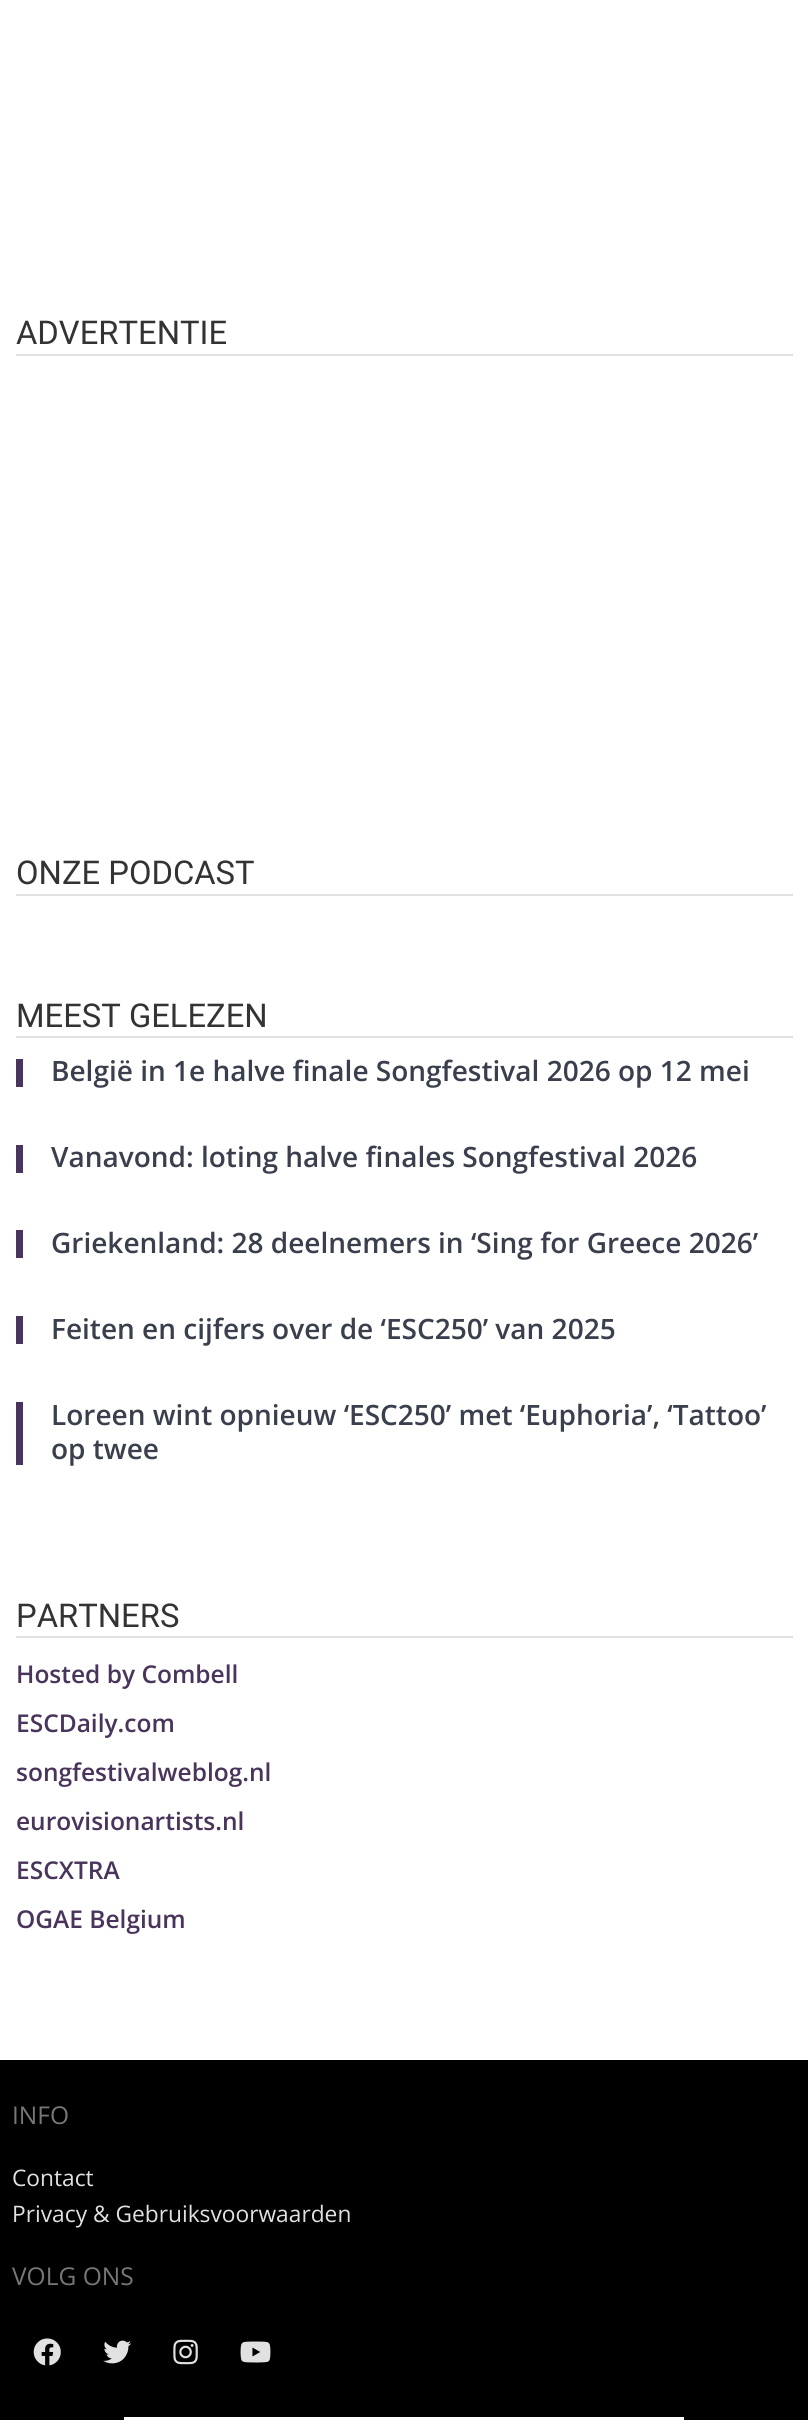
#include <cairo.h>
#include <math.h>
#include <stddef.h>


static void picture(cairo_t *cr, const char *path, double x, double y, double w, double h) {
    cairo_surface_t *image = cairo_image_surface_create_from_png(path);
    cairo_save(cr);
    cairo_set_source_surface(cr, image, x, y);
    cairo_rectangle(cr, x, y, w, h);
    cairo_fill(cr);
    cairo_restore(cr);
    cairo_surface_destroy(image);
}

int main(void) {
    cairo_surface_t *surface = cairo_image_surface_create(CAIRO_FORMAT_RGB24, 808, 2420);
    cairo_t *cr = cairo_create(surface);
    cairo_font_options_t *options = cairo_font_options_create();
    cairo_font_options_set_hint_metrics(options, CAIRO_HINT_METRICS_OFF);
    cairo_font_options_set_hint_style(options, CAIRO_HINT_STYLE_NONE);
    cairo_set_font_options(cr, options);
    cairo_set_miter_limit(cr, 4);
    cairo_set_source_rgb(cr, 1, 1, 1);
    cairo_paint(cr);
    cairo_set_source_rgb(cr, 0.882, 0.882, 0.882);
    cairo_rectangle(cr, 16, 354, 777, 2);
    cairo_fill(cr);
    cairo_select_font_face(cr, "Roboto", CAIRO_FONT_SLANT_NORMAL, CAIRO_FONT_WEIGHT_NORMAL);
    cairo_set_font_size(cr, 32.75);
    cairo_set_source_rgb(cr, 0.2, 0.2, 0.2);
    cairo_move_to(cr, 16, 344);
    cairo_show_text(cr, "ADVERTENTIE");
    cairo_set_source_rgb(cr, 0.882, 0.882, 0.882);
    cairo_rectangle(cr, 16, 894, 777, 2);
    cairo_fill(cr);
    cairo_set_source_rgb(cr, 0.2, 0.2, 0.2);
    cairo_move_to(cr, 16, 884);
    cairo_show_text(cr, "ONZE PODCAST");
    cairo_set_source_rgb(cr, 0.882, 0.882, 0.882);
    cairo_rectangle(cr, 16, 1036, 777, 2);
    cairo_fill(cr);
    cairo_set_source_rgb(cr, 0.2, 0.2, 0.2);
    cairo_move_to(cr, 16, 1027);
    cairo_show_text(cr, "MEEST GELEZEN");
    cairo_set_source_rgb(cr, 0.286, 0.204, 0.357);
    cairo_rectangle(cr, 16, 1059, 7, 28);
    cairo_fill(cr);
    cairo_select_font_face(cr, "Open Sans SemiBold", CAIRO_FONT_SLANT_NORMAL, CAIRO_FONT_WEIGHT_NORMAL);
    cairo_set_font_size(cr, 28);
    cairo_set_source_rgb(cr, 0.224, 0.247, 0.298);
    cairo_move_to(cr, 51, 1081);
    cairo_show_text(cr, "België in 1e halve finale Songfestival 2026 op 12 mei");
    cairo_set_source_rgb(cr, 0.286, 0.204, 0.357);
    cairo_rectangle(cr, 16, 1145, 7, 28);
    cairo_fill(cr);
    cairo_set_source_rgb(cr, 0.224, 0.247, 0.298);
    cairo_move_to(cr, 51, 1167);
    cairo_show_text(cr, "Vanavond: loting halve finales Songfestival 2026");
    cairo_set_source_rgb(cr, 0.286, 0.204, 0.357);
    cairo_rectangle(cr, 16, 1230, 7, 28);
    cairo_fill(cr);
    cairo_set_source_rgb(cr, 0.224, 0.247, 0.298);
    cairo_move_to(cr, 51, 1253);
    cairo_show_text(cr, "Griekenland: 28 deelnemers in ‘Sing for Greece 2026’");
    cairo_set_source_rgb(cr, 0.286, 0.204, 0.357);
    cairo_rectangle(cr, 16, 1316, 7, 28);
    cairo_fill(cr);
    cairo_set_source_rgb(cr, 0.224, 0.247, 0.298);
    cairo_move_to(cr, 51, 1339);
    cairo_show_text(cr, "Feiten en cijfers over de ‘ESC250’ van 2025");
    cairo_set_source_rgb(cr, 0.286, 0.204, 0.357);
    cairo_rectangle(cr, 16, 1402, 7, 63);
    cairo_fill(cr);
    cairo_set_source_rgb(cr, 0.224, 0.247, 0.298);
    cairo_move_to(cr, 51, 1425);
    cairo_show_text(cr, "Loreen wint opnieuw ‘ESC250’ met ‘Euphoria’, ‘Tattoo’");
    cairo_move_to(cr, 51, 1459);
    cairo_show_text(cr, "op twee");
    cairo_set_source_rgb(cr, 0.882, 0.882, 0.882);
    cairo_rectangle(cr, 16, 1636, 777, 2);
    cairo_fill(cr);
    cairo_select_font_face(cr, "Roboto", CAIRO_FONT_SLANT_NORMAL, CAIRO_FONT_WEIGHT_NORMAL);
    cairo_set_font_size(cr, 32.75);
    cairo_set_source_rgb(cr, 0.2, 0.2, 0.2);
    cairo_move_to(cr, 16, 1627);
    cairo_show_text(cr, "PARTNERS");
    cairo_select_font_face(cr, "Open Sans SemiBold", CAIRO_FONT_SLANT_NORMAL, CAIRO_FONT_WEIGHT_NORMAL);
    cairo_set_font_size(cr, 24.5);
    cairo_set_source_rgb(cr, 0.286, 0.204, 0.357);
    cairo_move_to(cr, 16, 1683);
    cairo_show_text(cr, "Hosted by Combell");
    cairo_move_to(cr, 16, 1732);
    cairo_show_text(cr, "ESCDaily.com");
    cairo_move_to(cr, 16, 1781);
    cairo_show_text(cr, "songfestivalweblog.nl");
    cairo_move_to(cr, 16, 1830);
    cairo_show_text(cr, "eurovisionartists.nl");
    cairo_move_to(cr, 16, 1879);
    cairo_show_text(cr, "ESCXTRA");
    cairo_move_to(cr, 16, 1928);
    cairo_show_text(cr, "OGAE Belgium");
    cairo_set_source_rgb(cr, 0, 0, 0);
    cairo_rectangle(cr, 0, 2060, 808, 360);
    cairo_fill(cr);
    cairo_select_font_face(cr, "Open Sans", CAIRO_FONT_SLANT_NORMAL, CAIRO_FONT_WEIGHT_NORMAL);
    cairo_set_source_rgb(cr, 0.467, 0.467, 0.467);
    cairo_move_to(cr, 12, 2124);
    cairo_show_text(cr, "INFO");
    cairo_set_font_size(cr, 22.75);
    cairo_set_source_rgb(cr, 0.882, 0.882, 0.882);
    cairo_move_to(cr, 12, 2186);
    cairo_show_text(cr, "Contact");
    cairo_move_to(cr, 12, 2222);
    cairo_show_text(cr, "Privacy & Gebruiksvoorwaarden");
    cairo_set_font_size(cr, 24.5);
    cairo_set_source_rgb(cr, 0.467, 0.467, 0.467);
    cairo_move_to(cr, 12, 2285);
    cairo_show_text(cr, "VOLG ONS");
    picture(cr, "img1.png", 33, 2338, 28, 28);
    picture(cr, "img2.png", 103, 2340, 29, 24);
    picture(cr, "img3.png", 173, 2339, 25, 26);
    picture(cr, "img4.png", 240, 2341, 31, 22);
    cairo_set_source_rgb(cr, 1, 1, 1);
    cairo_rectangle(cr, 124, 2417, 560, 3);
    cairo_fill(cr);
    cairo_surface_write_to_png(surface, "page.png");
    cairo_font_options_destroy(options);
    cairo_destroy(cr);
    cairo_surface_destroy(surface);
    return 0;
}
